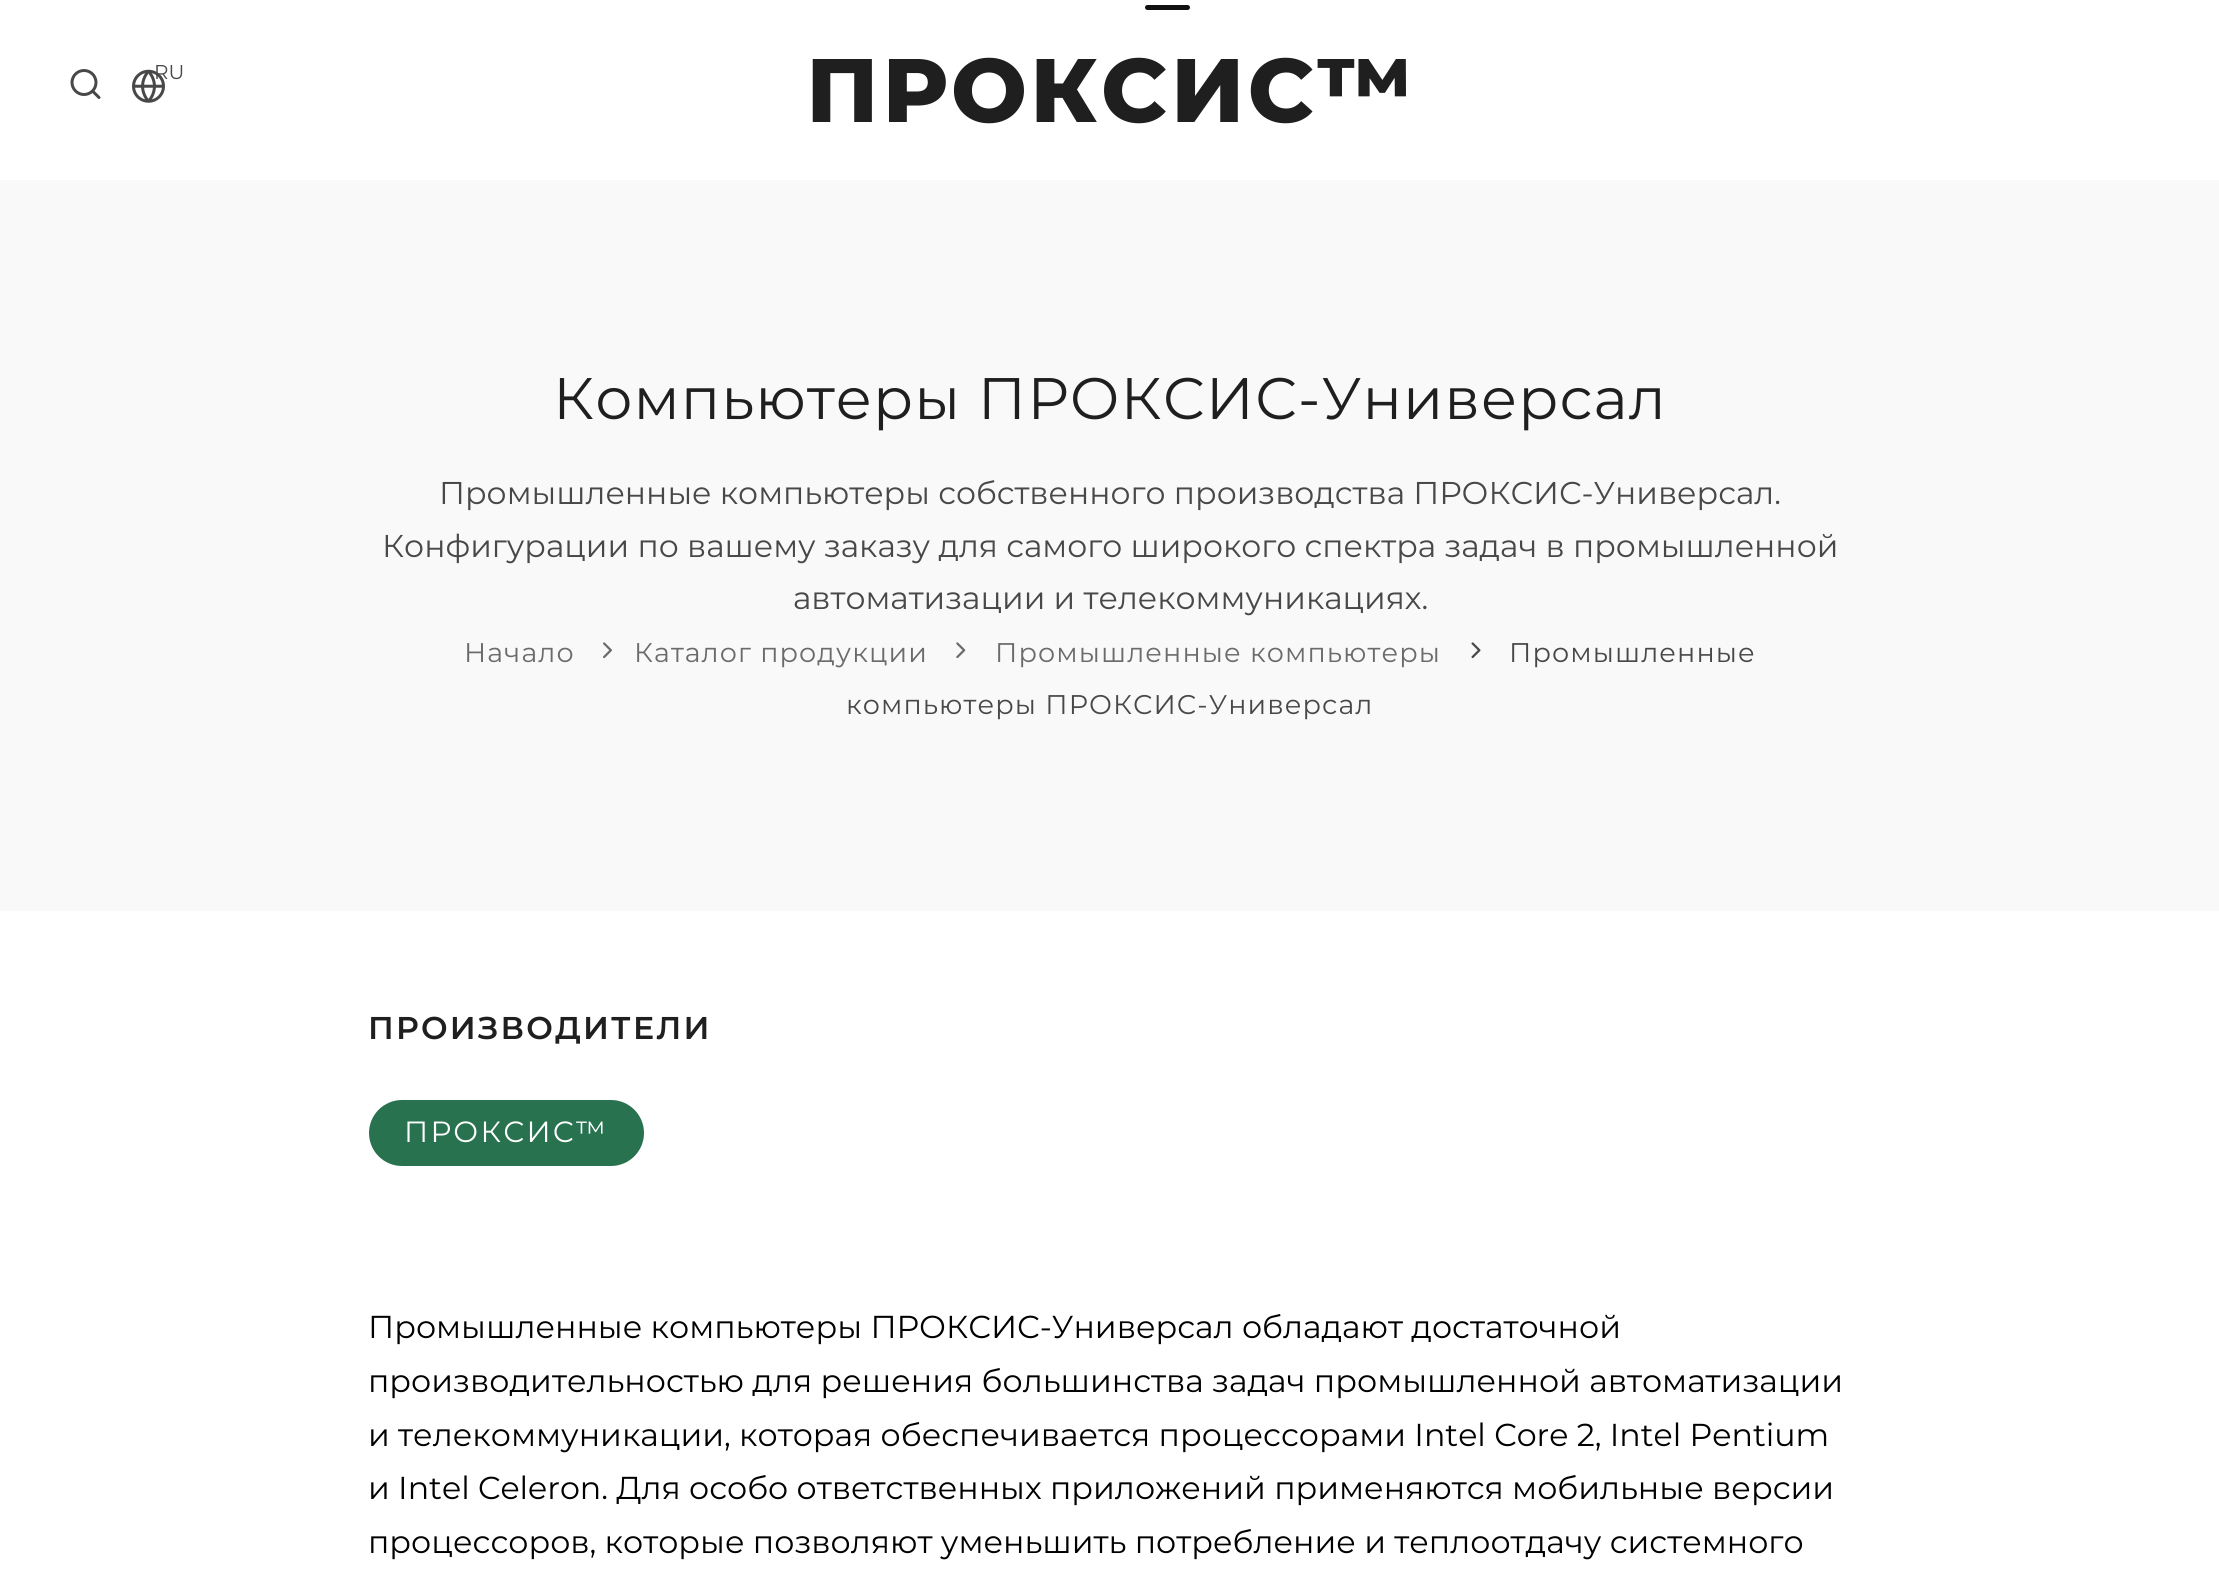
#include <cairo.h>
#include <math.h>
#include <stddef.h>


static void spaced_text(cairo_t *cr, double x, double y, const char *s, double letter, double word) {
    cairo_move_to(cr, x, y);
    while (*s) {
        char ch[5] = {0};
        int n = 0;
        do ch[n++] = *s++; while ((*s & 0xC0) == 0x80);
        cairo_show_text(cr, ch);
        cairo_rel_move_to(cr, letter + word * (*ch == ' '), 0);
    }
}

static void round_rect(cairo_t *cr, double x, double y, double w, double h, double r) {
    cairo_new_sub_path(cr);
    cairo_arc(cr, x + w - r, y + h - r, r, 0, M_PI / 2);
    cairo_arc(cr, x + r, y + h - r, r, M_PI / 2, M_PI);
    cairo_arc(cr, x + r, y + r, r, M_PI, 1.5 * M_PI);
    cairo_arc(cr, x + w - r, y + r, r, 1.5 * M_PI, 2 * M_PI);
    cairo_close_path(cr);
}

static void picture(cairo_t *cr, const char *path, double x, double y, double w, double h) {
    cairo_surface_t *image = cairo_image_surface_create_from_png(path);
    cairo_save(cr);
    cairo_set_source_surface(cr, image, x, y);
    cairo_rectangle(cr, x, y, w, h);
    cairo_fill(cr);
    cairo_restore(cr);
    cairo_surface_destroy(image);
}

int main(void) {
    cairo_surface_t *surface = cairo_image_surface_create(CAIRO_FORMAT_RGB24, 2219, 1577);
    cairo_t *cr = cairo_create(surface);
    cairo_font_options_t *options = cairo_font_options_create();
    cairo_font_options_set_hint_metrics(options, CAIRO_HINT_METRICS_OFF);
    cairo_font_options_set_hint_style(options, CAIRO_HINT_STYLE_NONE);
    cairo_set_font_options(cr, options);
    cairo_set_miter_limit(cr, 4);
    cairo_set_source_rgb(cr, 1, 1, 1);
    cairo_paint(cr);
    cairo_set_source_rgb(cr, 0.067, 0.067, 0.067);
    round_rect(cr, 1145, 5, 45, 5, 2.5);
    cairo_fill(cr);
    picture(cr, "img1.png", 70, 69, 31, 30);
    picture(cr, "img2.png", 132, 69, 33, 34);
    cairo_select_font_face(cr, "Montserrat", CAIRO_FONT_SLANT_NORMAL, CAIRO_FONT_WEIGHT_NORMAL);
    cairo_set_font_size(cr, 20);
    cairo_set_source_rgb(cr, 0.282, 0.282, 0.282);
    cairo_move_to(cr, 154, 79);
    cairo_show_text(cr, "RU");
    cairo_select_font_face(cr, "Montserrat ExtraBold", CAIRO_FONT_SLANT_NORMAL, CAIRO_FONT_WEIGHT_NORMAL);
    cairo_set_font_size(cr, 90);
    cairo_set_source_rgb(cr, 0.122, 0.122, 0.122);
    spaced_text(cr, 806, 122, "ПРОКСИС™", 3.5, 0);
    cairo_set_source_rgb(cr, 0.973, 0.976, 0.98);
    cairo_rectangle(cr, 0, 180, 2219, 731);
    cairo_fill(cr);
    cairo_select_font_face(cr, "Montserrat", CAIRO_FONT_SLANT_NORMAL, CAIRO_FONT_WEIGHT_NORMAL);
    cairo_set_font_size(cr, 58.5);
    cairo_set_source_rgb(cr, 0.122, 0.122, 0.122);
    spaced_text(cr, 553, 419, "Компьютеры ПРОКСИС-Универсал", 1.1, 0);
    cairo_set_font_size(cr, 31.5);
    cairo_set_source_rgb(cr, 0.282, 0.282, 0.282);
    cairo_move_to(cr, 439, 504);
    cairo_show_text(cr, "Промышленные компьютеры собственного производства ПРОКСИС-Универсал.");
    cairo_move_to(cr, 382, 557);
    cairo_show_text(cr, "Конфигурации по вашему заказу для самого широкого спектра задач в промышленной");
    cairo_move_to(cr, 793, 609);
    cairo_show_text(cr, "автоматизации и телекоммуникациях.");
    cairo_set_font_size(cr, 27);
    cairo_set_source_rgb(cr, 0.42, 0.42, 0.424);
    spaced_text(cr, 464, 662, "Начало", 1.1, 0);
    picture(cr, "img3.png", 603, 642, 9, 17);
    spaced_text(cr, 634, 662, "Каталог продукции", 1.1, 0);
    picture(cr, "img4.png", 956, 642, 10, 17);
    spaced_text(cr, 995, 662, "Промышленные компьютеры", 1.1, 0);
    picture(cr, "img5.png", 1471, 642, 10, 17);
    cairo_set_source_rgb(cr, 0.282, 0.282, 0.282);
    spaced_text(cr, 1509, 662, "Промышленные", 1.1, 0);
    spaced_text(cr, 846, 714, "компьютеры ПРОКСИС-Универсал", 1.1, 0);
    cairo_select_font_face(cr, "Montserrat SemiBold", CAIRO_FONT_SLANT_NORMAL, CAIRO_FONT_WEIGHT_NORMAL);
    cairo_set_font_size(cr, 31.5);
    cairo_set_source_rgb(cr, 0.122, 0.122, 0.122);
    spaced_text(cr, 368, 1039, "ПРОИЗВОДИТЕЛИ", 2.25, 0);
    cairo_set_source_rgb(cr, 0.157, 0.447, 0.31);
    round_rect(cr, 371.5, 1102.5, 270, 61, 30.5);
    cairo_fill_preserve(cr);
    cairo_set_line_width(cr, 5);
    cairo_stroke(cr);
    cairo_select_font_face(cr, "Montserrat", CAIRO_FONT_SLANT_NORMAL, CAIRO_FONT_WEIGHT_NORMAL);
    cairo_set_font_size(cr, 29.25);
    cairo_set_source_rgb(cr, 1, 1, 1);
    spaced_text(cr, 404, 1142, "ПРОКСИС™", 2.25, 0);
    cairo_set_font_size(cr, 31.7);
    cairo_set_source_rgb(cr, 0, 0, 0);
    cairo_move_to(cr, 368, 1338);
    cairo_show_text(cr, "Промышленные компьютеры ПРОКСИС-Универсал обладают достаточной");
    cairo_move_to(cr, 368, 1392);
    cairo_show_text(cr, "производительностью для решения большинства задач промышленной автоматизации");
    cairo_move_to(cr, 368, 1446);
    cairo_show_text(cr, "и телекоммуникации, которая обеспечивается процессорами Intel Core 2, Intel Pentium");
    cairo_move_to(cr, 368, 1499);
    cairo_show_text(cr, "и Intel Celeron. Для особо ответственных приложений применяются мобильные версии");
    cairo_move_to(cr, 368, 1553);
    cairo_show_text(cr, "процессоров, которые позволяют уменьшить потребление и теплоотдачу системного");
    cairo_surface_write_to_png(surface, "page.png");
    cairo_font_options_destroy(options);
    cairo_destroy(cr);
    cairo_surface_destroy(surface);
    return 0;
}
